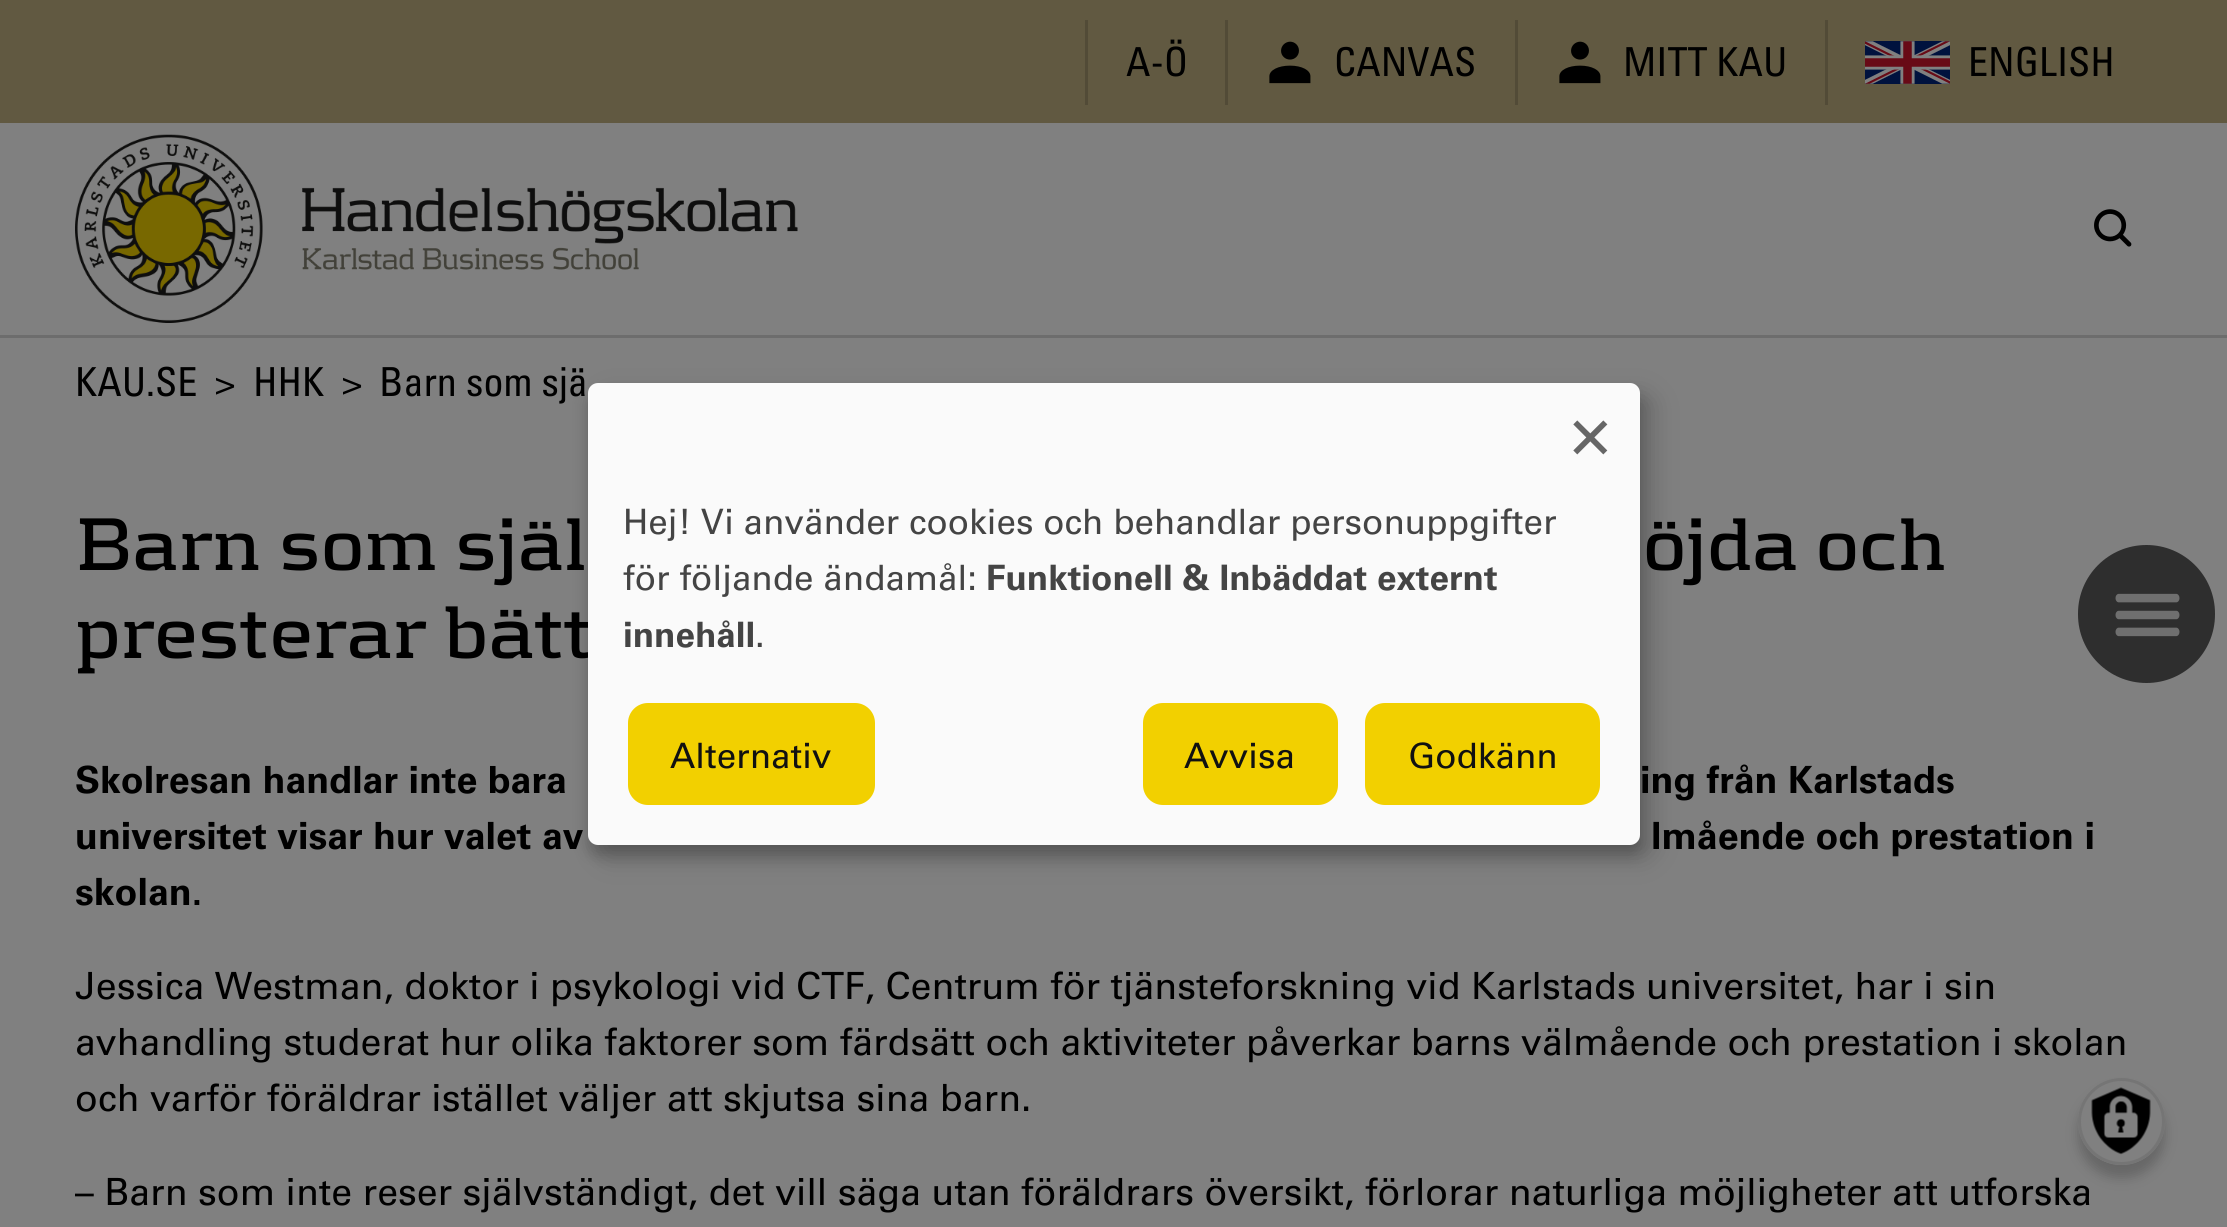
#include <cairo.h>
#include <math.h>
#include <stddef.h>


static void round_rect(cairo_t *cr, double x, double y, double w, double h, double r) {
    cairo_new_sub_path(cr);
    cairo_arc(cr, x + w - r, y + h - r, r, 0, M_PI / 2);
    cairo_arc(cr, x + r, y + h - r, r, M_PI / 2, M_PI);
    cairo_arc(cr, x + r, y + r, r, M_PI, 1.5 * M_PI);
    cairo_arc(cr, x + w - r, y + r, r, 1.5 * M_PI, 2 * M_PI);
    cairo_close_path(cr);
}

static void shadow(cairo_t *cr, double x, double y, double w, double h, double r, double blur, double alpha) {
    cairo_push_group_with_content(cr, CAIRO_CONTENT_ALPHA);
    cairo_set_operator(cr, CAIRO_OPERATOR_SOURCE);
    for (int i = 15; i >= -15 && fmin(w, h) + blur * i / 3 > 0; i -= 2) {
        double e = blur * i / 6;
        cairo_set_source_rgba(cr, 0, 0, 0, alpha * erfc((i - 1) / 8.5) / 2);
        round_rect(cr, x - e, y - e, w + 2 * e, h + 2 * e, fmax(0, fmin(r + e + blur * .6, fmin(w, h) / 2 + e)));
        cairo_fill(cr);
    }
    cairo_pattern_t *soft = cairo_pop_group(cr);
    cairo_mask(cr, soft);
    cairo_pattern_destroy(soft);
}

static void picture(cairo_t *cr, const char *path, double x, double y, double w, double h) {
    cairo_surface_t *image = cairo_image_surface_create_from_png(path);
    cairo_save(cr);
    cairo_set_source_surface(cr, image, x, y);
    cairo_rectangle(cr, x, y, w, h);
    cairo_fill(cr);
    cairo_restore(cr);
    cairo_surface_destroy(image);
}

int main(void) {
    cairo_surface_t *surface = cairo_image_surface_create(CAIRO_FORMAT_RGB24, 2227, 1227);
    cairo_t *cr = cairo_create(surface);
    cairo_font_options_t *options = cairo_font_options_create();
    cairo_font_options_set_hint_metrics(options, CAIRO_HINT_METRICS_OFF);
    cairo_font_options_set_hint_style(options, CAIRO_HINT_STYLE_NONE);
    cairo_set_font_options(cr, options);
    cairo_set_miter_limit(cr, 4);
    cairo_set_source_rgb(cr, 0.502, 0.502, 0.502);
    cairo_paint(cr);
    cairo_set_source_rgb(cr, 0.38, 0.349, 0.255);
    cairo_rectangle(cr, 0, 0, 2227, 123);
    cairo_fill(cr);
    cairo_set_source_rgb(cr, 0.322, 0.294, 0.216);
    cairo_rectangle(cr, 1085, 20, 3, 85);
    cairo_fill(cr);
    cairo_select_font_face(cr, "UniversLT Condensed", CAIRO_FONT_SLANT_NORMAL, CAIRO_FONT_WEIGHT_NORMAL);
    cairo_set_font_size(cr, 40);
    cairo_set_source_rgb(cr, 0, 0, 0);
    cairo_move_to(cr, 1126, 76);
    cairo_show_text(cr, "A-Ö");
    cairo_set_source_rgb(cr, 0.322, 0.294, 0.216);
    cairo_rectangle(cr, 1225, 20, 3, 85);
    cairo_fill(cr);
    picture(cr, "img1.png", 1269, 41, 42, 43);
    cairo_set_source_rgb(cr, 0, 0, 0);
    cairo_move_to(cr, 1334, 76);
    cairo_show_text(cr, "CANVAS");
    cairo_set_source_rgb(cr, 0.322, 0.294, 0.216);
    cairo_rectangle(cr, 1515, 20, 3, 85);
    cairo_fill(cr);
    picture(cr, "img1.png", 1559, 41, 42, 43);
    cairo_set_source_rgb(cr, 0, 0, 0);
    cairo_move_to(cr, 1623, 76);
    cairo_show_text(cr, "MITT KAU");
    cairo_set_source_rgb(cr, 0.322, 0.294, 0.216);
    cairo_rectangle(cr, 1825, 20, 3, 85);
    cairo_fill(cr);
    picture(cr, "img2.png", 1865, 41, 85, 43);
    cairo_set_source_rgb(cr, 0, 0, 0);
    cairo_move_to(cr, 1968, 76);
    cairo_show_text(cr, "ENGLISH");
    picture(cr, "img3.png", 75, 134, 188, 189);
    picture(cr, "img4.png", 302, 187, 496, 83);
    picture(cr, "img5.png", 2094, 209, 38, 38);
    cairo_set_source_rgb(cr, 0.427, 0.427, 0.427);
    cairo_rectangle(cr, 0, 335, 2227, 3);
    cairo_fill(cr);
    cairo_set_source_rgb(cr, 0, 0, 0);
    cairo_move_to(cr, 75, 396);
    cairo_show_text(cr, "KAU.SE");
    cairo_move_to(cr, 215, 396);
    cairo_show_text(cr, ">");
    cairo_move_to(cr, 253, 396);
    cairo_show_text(cr, "HHK");
    cairo_move_to(cr, 342, 396);
    cairo_show_text(cr, ">");
    cairo_move_to(cr, 379, 396);
    cairo_show_text(cr, "Barn som sjä");
    cairo_select_font_face(cr, "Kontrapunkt", CAIRO_FONT_SLANT_NORMAL, CAIRO_FONT_WEIGHT_BOLD);
    cairo_set_font_size(cr, 77.5);
    cairo_move_to(cr, 75, 570);
    cairo_show_text(cr, "Barn som själ");
    cairo_move_to(cr, 1643, 570);
    cairo_show_text(cr, "öjda och");
    cairo_move_to(cr, 75, 658);
    cairo_show_text(cr, "presterar bätt");
    cairo_select_font_face(cr, "Univers", CAIRO_FONT_SLANT_NORMAL, CAIRO_FONT_WEIGHT_BOLD);
    cairo_set_font_size(cr, 37.5);
    cairo_move_to(cr, 75, 793);
    cairo_show_text(cr, "Skolresan handlar inte bara");
    cairo_move_to(cr, 1640, 793);
    cairo_show_text(cr, "ing från Karlstads");
    cairo_move_to(cr, 75, 849);
    cairo_show_text(cr, "universitet visar hur valet av");
    cairo_move_to(cr, 1651, 849);
    cairo_show_text(cr, "lmående och prestation i");
    cairo_move_to(cr, 75, 905);
    cairo_show_text(cr, "skolan.");
    cairo_select_font_face(cr, "Univers", CAIRO_FONT_SLANT_NORMAL, CAIRO_FONT_WEIGHT_NORMAL);
    cairo_move_to(cr, 75, 999);
    cairo_show_text(cr, "Jessica Westman, doktor i psykologi vid CTF, Centrum för tjänsteforskning vid Karlstads universitet, har i sin");
    cairo_move_to(cr, 75, 1055);
    cairo_show_text(cr, "avhandling studerat hur olika faktorer som färdsätt och aktiviteter påverkar barns välmående och prestation i skolan");
    cairo_move_to(cr, 75, 1111);
    cairo_show_text(cr, "och varför föräldrar istället väljer att skjutsa sina barn.");
    cairo_move_to(cr, 75, 1205);
    cairo_show_text(cr, "– Barn som inte reser självständigt, det vill säga utan föräldrars översikt, förlorar naturliga möjligheter att utforska");
    cairo_set_source_rgb(cr, 0.18, 0.18, 0.18);
    round_rect(cr, 2078, 545, 137, 138, 68.5);
    cairo_fill(cr);
    picture(cr, "img6.png", 2115, 593, 65, 44);
    cairo_set_source_rgb(cr, 0, 0, 0);
    shadow(cr, 600, 395, 1053, 463, 10, 12.5, 0.19);
    shadow(cr, 588, 393, 1052, 462, 10, 7.5, 0.2);
    cairo_set_source_rgb(cr, 0.98, 0.98, 0.98);
    round_rect(cr, 588, 383, 1052, 462, 10);
    cairo_fill(cr);
    cairo_set_font_size(cr, 70);
    cairo_set_source_rgb(cr, 0.4, 0.4, 0.4);
    cairo_move_to(cr, 1570, 455);
    cairo_show_text(cr, "×");
    cairo_set_font_size(cr, 35);
    cairo_set_source_rgb(cr, 0.267, 0.267, 0.267);
    cairo_move_to(cr, 623, 534);
    cairo_show_text(cr, "Hej! Vi använder cookies och behandlar personuppgifter");
    cairo_move_to(cr, 623, 590);
    cairo_show_text(cr, "för följande ändamål:");
    cairo_select_font_face(cr, "Univers", CAIRO_FONT_SLANT_NORMAL, CAIRO_FONT_WEIGHT_BOLD);
    cairo_move_to(cr, 986, 590);
    cairo_show_text(cr, "Funktionell & Inbäddat externt");
    cairo_move_to(cr, 623, 647);
    cairo_show_text(cr, "innehåll");
    cairo_select_font_face(cr, "Univers", CAIRO_FONT_SLANT_NORMAL, CAIRO_FONT_WEIGHT_NORMAL);
    cairo_move_to(cr, 755, 647);
    cairo_show_text(cr, ".");
    cairo_set_source_rgb(cr, 0.949, 0.816, 0);
    round_rect(cr, 625.5, 700.5, 252, 107, 22.5);
    cairo_fill_preserve(cr);
    cairo_set_source_rgb(cr, 0.98, 0.98, 0.98);
    cairo_set_line_width(cr, 5);
    cairo_stroke(cr);
    cairo_set_source_rgb(cr, 0.067, 0.067, 0.067);
    cairo_move_to(cr, 670, 768);
    cairo_show_text(cr, "Alternativ");
    cairo_set_source_rgb(cr, 0.949, 0.816, 0);
    round_rect(cr, 1140.5, 700.5, 200, 107, 22.5);
    cairo_fill_preserve(cr);
    cairo_set_source_rgb(cr, 0.98, 0.98, 0.98);
    cairo_stroke(cr);
    cairo_set_source_rgb(cr, 0.067, 0.067, 0.067);
    cairo_move_to(cr, 1184, 768);
    cairo_show_text(cr, "Avvisa");
    cairo_set_source_rgb(cr, 0.949, 0.816, 0);
    round_rect(cr, 1362.5, 700.5, 240, 107, 22.5);
    cairo_fill_preserve(cr);
    cairo_set_source_rgb(cr, 0.98, 0.98, 0.98);
    cairo_stroke(cr);
    cairo_set_source_rgb(cr, 0.067, 0.067, 0.067);
    cairo_move_to(cr, 1408, 768);
    cairo_show_text(cr, "Godkänn");
    cairo_set_source_rgb(cr, 0, 0, 0);
    shadow(cr, 2078, 1090, 87, 88, 43.5, 6, 0.2);
    cairo_set_source_rgb(cr, 0.502, 0.502, 0.502);
    cairo_arc(cr, 2121.5, 1121.5, 43.5, 0, 2 * M_PI);
    cairo_fill(cr);
    picture(cr, "img7.png", 2091, 1087, 60, 68);
    cairo_arc(cr, 2121.5, 1121.5, 42, 0, 2 * M_PI);
    cairo_set_source_rgb(cr, 0.459, 0.459, 0.459);
    cairo_set_line_width(cr, 3);
    cairo_stroke(cr);
    cairo_surface_write_to_png(surface, "page.png");
    cairo_font_options_destroy(options);
    cairo_destroy(cr);
    cairo_surface_destroy(surface);
    return 0;
}
